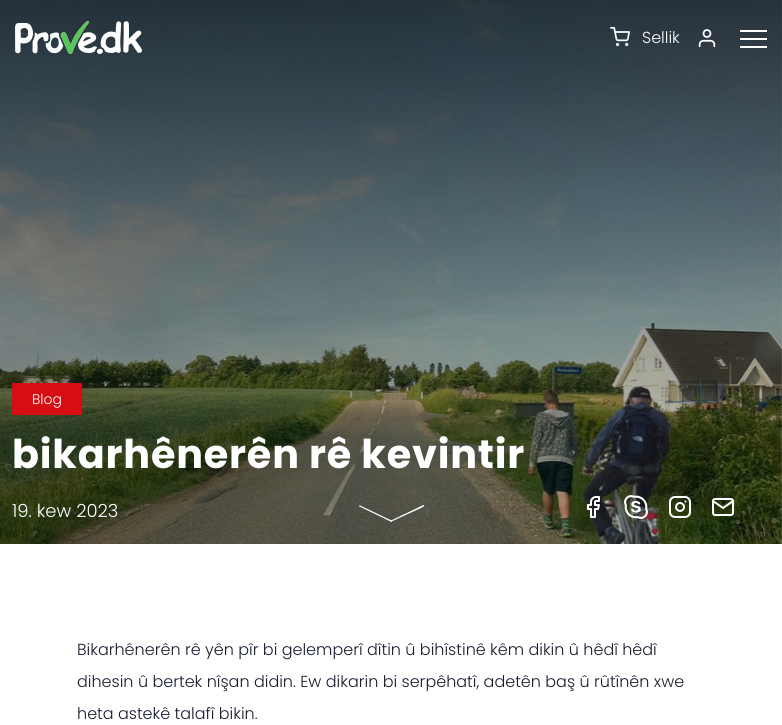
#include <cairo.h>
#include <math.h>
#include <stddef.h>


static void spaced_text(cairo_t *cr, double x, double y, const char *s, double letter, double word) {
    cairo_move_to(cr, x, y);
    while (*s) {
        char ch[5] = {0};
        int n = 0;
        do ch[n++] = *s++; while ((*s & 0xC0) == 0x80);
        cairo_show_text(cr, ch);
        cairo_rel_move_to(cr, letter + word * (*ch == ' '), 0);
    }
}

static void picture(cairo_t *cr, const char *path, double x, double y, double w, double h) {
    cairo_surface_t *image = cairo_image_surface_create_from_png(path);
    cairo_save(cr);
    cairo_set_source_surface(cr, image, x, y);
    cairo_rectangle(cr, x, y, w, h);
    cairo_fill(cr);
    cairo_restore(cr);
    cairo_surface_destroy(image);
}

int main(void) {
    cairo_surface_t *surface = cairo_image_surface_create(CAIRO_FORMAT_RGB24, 782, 725);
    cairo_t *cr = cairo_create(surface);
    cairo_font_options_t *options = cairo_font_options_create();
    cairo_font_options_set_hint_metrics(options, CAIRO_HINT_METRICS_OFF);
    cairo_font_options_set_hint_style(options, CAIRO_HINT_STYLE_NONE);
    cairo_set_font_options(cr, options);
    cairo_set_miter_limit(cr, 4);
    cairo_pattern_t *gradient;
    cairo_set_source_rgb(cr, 1, 1, 1);
    cairo_paint(cr);
    picture(cr, "img4.png", 0, 0, 782, 544);
    gradient = cairo_pattern_create_linear(391, 725, 391, 0);
    cairo_pattern_add_color_stop_rgba(gradient, 0, 0, 0, 0, 0);
    cairo_pattern_add_color_stop_rgba(gradient, 1, 0, 0, 0, 0.7);
    cairo_set_source(cr, gradient);
    cairo_pattern_destroy(gradient);
    cairo_rectangle(cr, 0, 0, 782, 544);
    cairo_fill(cr);
    picture(cr, "img1.png", 15, 21, 127, 33);
    picture(cr, "img2.png", 610, 27, 20, 20);
    cairo_select_font_face(cr, "Poppins Light", CAIRO_FONT_SLANT_NORMAL, CAIRO_FONT_WEIGHT_NORMAL);
    cairo_set_font_size(cr, 16);
    cairo_set_source_rgb(cr, 1, 1, 1);
    cairo_move_to(cr, 642, 43);
    cairo_show_text(cr, "Sellik");
    picture(cr, "img3.png", 698, 29, 18, 19);
    cairo_rectangle(cr, 740, 30, 27, 2);
    cairo_fill(cr);
    cairo_rectangle(cr, 740, 38, 27, 2);
    cairo_fill(cr);
    cairo_rectangle(cr, 740, 46, 27, 2);
    cairo_fill(cr);
    cairo_set_source_rgb(cr, 0.839, 0.055, 0.075);
    cairo_rectangle(cr, 12, 383, 70, 32);
    cairo_fill(cr);
    cairo_set_font_size(cr, 14);
    cairo_set_source_rgb(cr, 1, 1, 1);
    cairo_move_to(cr, 32, 404);
    cairo_show_text(cr, "Blog");
    cairo_select_font_face(cr, "Poppins", CAIRO_FONT_SLANT_NORMAL, CAIRO_FONT_WEIGHT_BOLD);
    cairo_set_font_size(cr, 39.75);
    spaced_text(cr, 12, 468, "bikarhênerên rê kevintir", 0.8, 0);
    cairo_select_font_face(cr, "Poppins Light", CAIRO_FONT_SLANT_NORMAL, CAIRO_FONT_WEIGHT_NORMAL);
    cairo_set_font_size(cr, 18);
    cairo_move_to(cr, 12, 517);
    cairo_show_text(cr, "19. kew 2023");
    picture(cr, "img5.png", 587, 496, 13, 22);
    picture(cr, "img6.png", 624, 495, 24, 24);
    picture(cr, "img7.png", 669, 496, 22, 22);
    picture(cr, "img8.png", 712, 498, 22, 18);
    cairo_new_path(cr);
    cairo_move_to(cr, 359.5, 506.5);
    cairo_curve_to(cr, 359, 506.5, 359, 506, 359, 505.5);
    cairo_line_to(cr, 360, 505.5);
    cairo_line_to(cr, 391.5, 520.5);
    cairo_line_to(cr, 392, 521);
    cairo_line_to(cr, 391.5, 522);
    cairo_close_path(cr);
    cairo_fill(cr);
    cairo_new_path(cr);
    cairo_move_to(cr, 391.5, 521.5);
    cairo_curve_to(cr, 390.5, 522, 390, 520.5, 391, 520.5);
    cairo_line_to(cr, 423.5, 505);
    cairo_line_to(cr, 424, 505.5);
    cairo_curve_to(cr, 424.5, 506.5, 422.5, 507, 422, 507.5);
    cairo_close_path(cr);
    cairo_fill(cr);
    cairo_set_font_size(cr, 16);
    cairo_set_source_rgb(cr, 0.094, 0.11, 0.196);
    cairo_move_to(cr, 77, 655);
    cairo_show_text(cr, "Bikarhênerên rê yên pîr bi gelemperî dîtin û bihîstinê kêm dikin û hêdî hêdî");
    cairo_move_to(cr, 77, 687);
    cairo_show_text(cr, "dihesin û bertek nîşan didin. Ew dikarin bi serpêhatî, adetên baş û rûtînên xwe");
    cairo_move_to(cr, 77, 719);
    cairo_show_text(cr, "heta astekê talafî bikin.");
    cairo_surface_write_to_png(surface, "page.png");
    cairo_font_options_destroy(options);
    cairo_destroy(cr);
    cairo_surface_destroy(surface);
    return 0;
}
